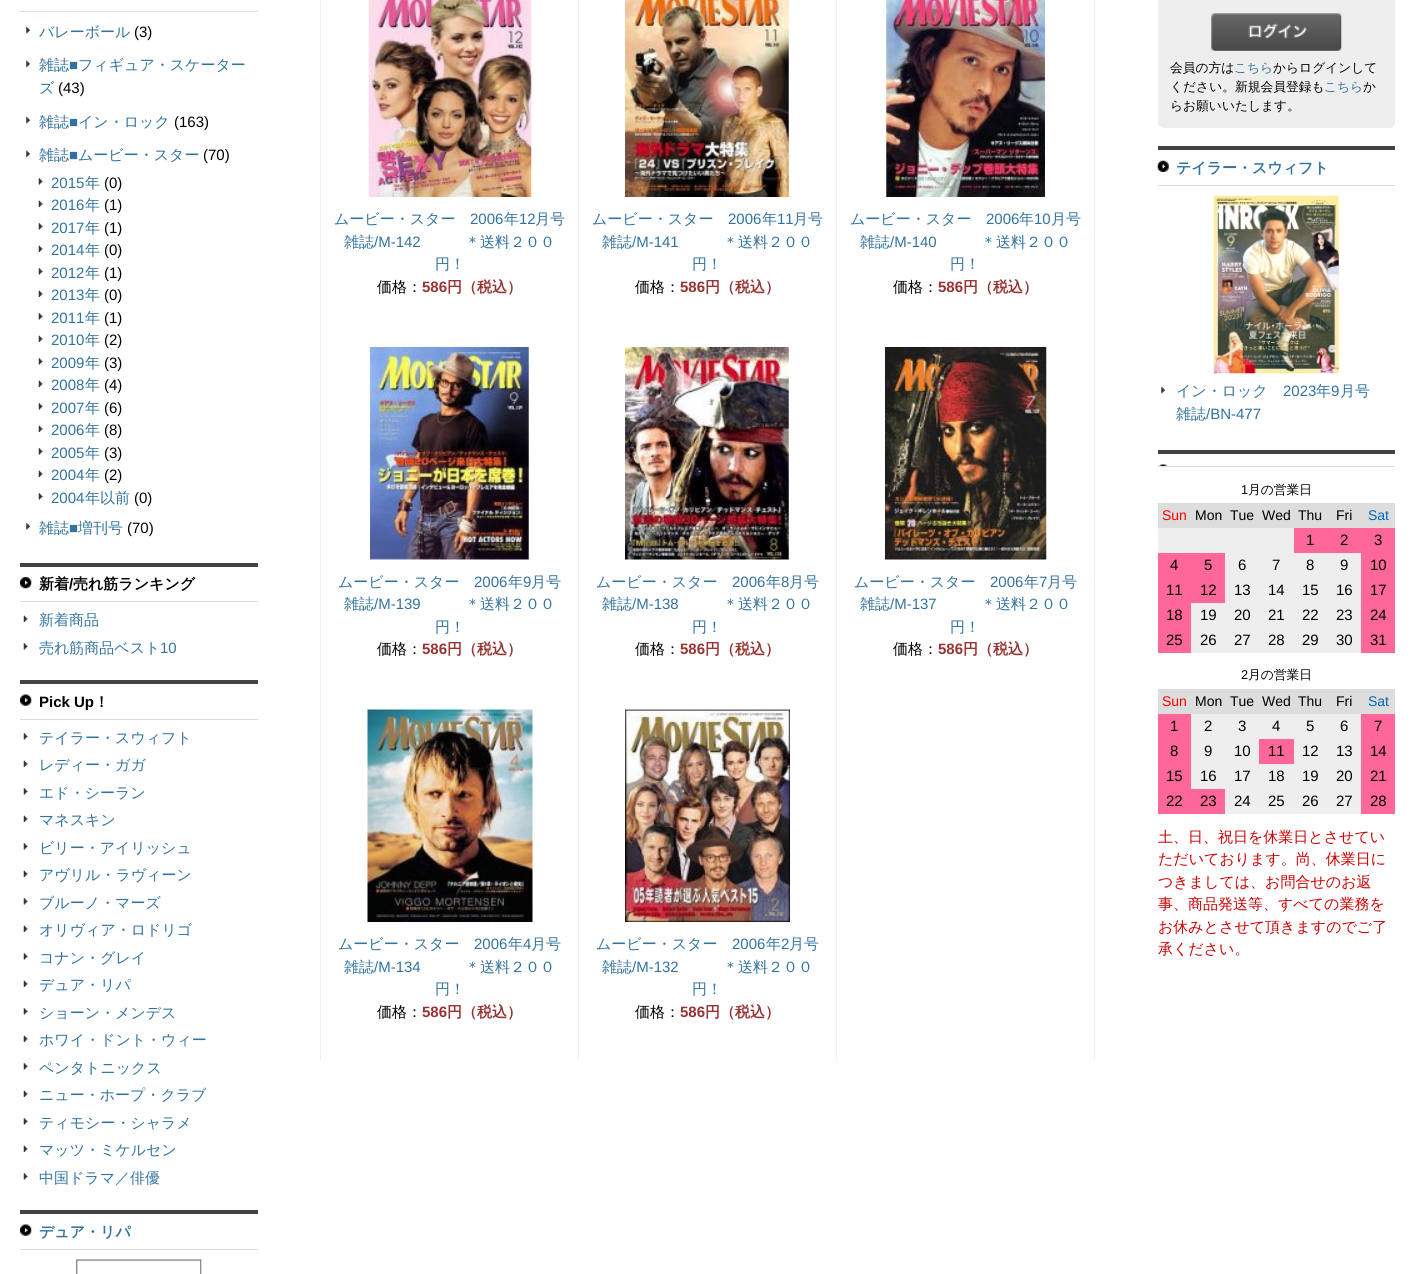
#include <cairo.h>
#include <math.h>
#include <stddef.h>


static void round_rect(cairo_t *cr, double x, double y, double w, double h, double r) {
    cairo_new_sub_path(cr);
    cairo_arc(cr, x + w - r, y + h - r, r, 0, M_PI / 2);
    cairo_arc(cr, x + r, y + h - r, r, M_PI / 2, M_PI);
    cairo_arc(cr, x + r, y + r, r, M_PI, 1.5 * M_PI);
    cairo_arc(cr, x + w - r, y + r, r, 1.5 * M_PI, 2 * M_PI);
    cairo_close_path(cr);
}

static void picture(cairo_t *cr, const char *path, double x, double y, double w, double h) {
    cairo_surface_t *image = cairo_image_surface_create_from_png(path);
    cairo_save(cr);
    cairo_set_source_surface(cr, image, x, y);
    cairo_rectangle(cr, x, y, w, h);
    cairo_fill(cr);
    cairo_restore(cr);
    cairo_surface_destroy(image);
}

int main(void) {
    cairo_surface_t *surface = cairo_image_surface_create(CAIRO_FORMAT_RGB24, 1415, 1274);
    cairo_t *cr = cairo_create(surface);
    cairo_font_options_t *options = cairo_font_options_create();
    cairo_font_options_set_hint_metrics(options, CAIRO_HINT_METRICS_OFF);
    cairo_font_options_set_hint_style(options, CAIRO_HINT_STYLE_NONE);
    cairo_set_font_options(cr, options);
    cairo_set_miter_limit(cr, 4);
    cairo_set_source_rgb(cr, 1, 1, 1);
    cairo_paint(cr);
    cairo_set_source_rgb(cr, 0.867, 0.867, 0.867);
    cairo_rectangle(cr, 20, 11, 238, 1);
    cairo_fill(cr);
    picture(cr, "img1.png", 26, 27, 4, 7);
    cairo_select_font_face(cr, "WenQuanYi Zen Hei Medium", CAIRO_FONT_SLANT_NORMAL, CAIRO_FONT_WEIGHT_NORMAL);
    cairo_set_font_size(cr, 15);
    cairo_set_source_rgb(cr, 0.196, 0.447, 0.62);
    cairo_move_to(cr, 39, 37);
    cairo_show_text(cr, "バレーボール");
    cairo_select_font_face(cr, "Liberation Sans", CAIRO_FONT_SLANT_NORMAL, CAIRO_FONT_WEIGHT_NORMAL);
    cairo_set_source_rgb(cr, 0, 0, 0);
    cairo_move_to(cr, 134, 37);
    cairo_show_text(cr, "(3)");
    picture(cr, "img2.png", 26, 60, 4, 7);
    cairo_select_font_face(cr, "WenQuanYi Zen Hei Medium", CAIRO_FONT_SLANT_NORMAL, CAIRO_FONT_WEIGHT_NORMAL);
    cairo_set_source_rgb(cr, 0.196, 0.447, 0.62);
    cairo_move_to(cr, 39, 70);
    cairo_show_text(cr, "雑誌");
    cairo_select_font_face(cr, "Liberation Sans", CAIRO_FONT_SLANT_NORMAL, CAIRO_FONT_WEIGHT_NORMAL);
    cairo_move_to(cr, 69, 70);
    cairo_show_text(cr, "■");
    cairo_select_font_face(cr, "WenQuanYi Zen Hei Medium", CAIRO_FONT_SLANT_NORMAL, CAIRO_FONT_WEIGHT_NORMAL);
    cairo_move_to(cr, 78, 70);
    cairo_show_text(cr, "フィギュア・スケーター");
    cairo_move_to(cr, 39, 93);
    cairo_show_text(cr, "ズ");
    cairo_select_font_face(cr, "Liberation Sans", CAIRO_FONT_SLANT_NORMAL, CAIRO_FONT_WEIGHT_NORMAL);
    cairo_set_source_rgb(cr, 0, 0, 0);
    cairo_move_to(cr, 58, 93);
    cairo_show_text(cr, "(43)");
    picture(cr, "img1.png", 26, 117, 4, 7);
    cairo_select_font_face(cr, "WenQuanYi Zen Hei Medium", CAIRO_FONT_SLANT_NORMAL, CAIRO_FONT_WEIGHT_NORMAL);
    cairo_set_source_rgb(cr, 0.196, 0.447, 0.62);
    cairo_move_to(cr, 39, 127);
    cairo_show_text(cr, "雑誌");
    cairo_select_font_face(cr, "Liberation Sans", CAIRO_FONT_SLANT_NORMAL, CAIRO_FONT_WEIGHT_NORMAL);
    cairo_move_to(cr, 69, 127);
    cairo_show_text(cr, "■");
    cairo_select_font_face(cr, "WenQuanYi Zen Hei Medium", CAIRO_FONT_SLANT_NORMAL, CAIRO_FONT_WEIGHT_NORMAL);
    cairo_move_to(cr, 78, 127);
    cairo_show_text(cr, "イン・ロック");
    cairo_select_font_face(cr, "Liberation Sans", CAIRO_FONT_SLANT_NORMAL, CAIRO_FONT_WEIGHT_NORMAL);
    cairo_set_source_rgb(cr, 0, 0, 0);
    cairo_move_to(cr, 174, 127);
    cairo_show_text(cr, "(163)");
    picture(cr, "img2.png", 26, 150, 4, 7);
    cairo_select_font_face(cr, "WenQuanYi Zen Hei Medium", CAIRO_FONT_SLANT_NORMAL, CAIRO_FONT_WEIGHT_NORMAL);
    cairo_set_source_rgb(cr, 0.196, 0.447, 0.62);
    cairo_move_to(cr, 39, 160);
    cairo_show_text(cr, "雑誌");
    cairo_select_font_face(cr, "Liberation Sans", CAIRO_FONT_SLANT_NORMAL, CAIRO_FONT_WEIGHT_NORMAL);
    cairo_move_to(cr, 69, 160);
    cairo_show_text(cr, "■");
    cairo_select_font_face(cr, "WenQuanYi Zen Hei Medium", CAIRO_FONT_SLANT_NORMAL, CAIRO_FONT_WEIGHT_NORMAL);
    cairo_move_to(cr, 78, 160);
    cairo_show_text(cr, "ムービー・スター");
    cairo_select_font_face(cr, "Liberation Sans", CAIRO_FONT_SLANT_NORMAL, CAIRO_FONT_WEIGHT_NORMAL);
    cairo_set_source_rgb(cr, 0, 0, 0);
    cairo_move_to(cr, 203, 160);
    cairo_show_text(cr, "(70)");
    picture(cr, "img3.png", 38, 178, 5, 7);
    cairo_set_source_rgb(cr, 0.196, 0.447, 0.62);
    cairo_move_to(cr, 51, 188);
    cairo_show_text(cr, "2015");
    cairo_select_font_face(cr, "WenQuanYi Zen Hei Medium", CAIRO_FONT_SLANT_NORMAL, CAIRO_FONT_WEIGHT_NORMAL);
    cairo_move_to(cr, 85, 188);
    cairo_show_text(cr, "年");
    cairo_select_font_face(cr, "Liberation Sans", CAIRO_FONT_SLANT_NORMAL, CAIRO_FONT_WEIGHT_NORMAL);
    cairo_set_source_rgb(cr, 0, 0, 0);
    cairo_move_to(cr, 104, 188);
    cairo_show_text(cr, "(0)");
    picture(cr, "img4.png", 38, 200, 5, 7);
    cairo_set_source_rgb(cr, 0.196, 0.447, 0.62);
    cairo_move_to(cr, 51, 210);
    cairo_show_text(cr, "2016");
    cairo_select_font_face(cr, "WenQuanYi Zen Hei Medium", CAIRO_FONT_SLANT_NORMAL, CAIRO_FONT_WEIGHT_NORMAL);
    cairo_move_to(cr, 85, 210);
    cairo_show_text(cr, "年");
    cairo_select_font_face(cr, "Liberation Sans", CAIRO_FONT_SLANT_NORMAL, CAIRO_FONT_WEIGHT_NORMAL);
    cairo_set_source_rgb(cr, 0, 0, 0);
    cairo_move_to(cr, 104, 210);
    cairo_show_text(cr, "(1)");
    picture(cr, "img3.png", 38, 223, 5, 7);
    cairo_set_source_rgb(cr, 0.196, 0.447, 0.62);
    cairo_move_to(cr, 51, 233);
    cairo_show_text(cr, "2017");
    cairo_select_font_face(cr, "WenQuanYi Zen Hei Medium", CAIRO_FONT_SLANT_NORMAL, CAIRO_FONT_WEIGHT_NORMAL);
    cairo_move_to(cr, 85, 233);
    cairo_show_text(cr, "年");
    cairo_select_font_face(cr, "Liberation Sans", CAIRO_FONT_SLANT_NORMAL, CAIRO_FONT_WEIGHT_NORMAL);
    cairo_set_source_rgb(cr, 0, 0, 0);
    cairo_move_to(cr, 104, 233);
    cairo_show_text(cr, "(1)");
    picture(cr, "img4.png", 38, 245, 5, 7);
    cairo_set_source_rgb(cr, 0.196, 0.447, 0.62);
    cairo_move_to(cr, 51, 255);
    cairo_show_text(cr, "2014");
    cairo_select_font_face(cr, "WenQuanYi Zen Hei Medium", CAIRO_FONT_SLANT_NORMAL, CAIRO_FONT_WEIGHT_NORMAL);
    cairo_move_to(cr, 85, 255);
    cairo_show_text(cr, "年");
    cairo_select_font_face(cr, "Liberation Sans", CAIRO_FONT_SLANT_NORMAL, CAIRO_FONT_WEIGHT_NORMAL);
    cairo_set_source_rgb(cr, 0, 0, 0);
    cairo_move_to(cr, 104, 255);
    cairo_show_text(cr, "(0)");
    picture(cr, "img3.png", 38, 268, 5, 7);
    cairo_set_source_rgb(cr, 0.196, 0.447, 0.62);
    cairo_move_to(cr, 51, 278);
    cairo_show_text(cr, "2012");
    cairo_select_font_face(cr, "WenQuanYi Zen Hei Medium", CAIRO_FONT_SLANT_NORMAL, CAIRO_FONT_WEIGHT_NORMAL);
    cairo_move_to(cr, 85, 278);
    cairo_show_text(cr, "年");
    cairo_select_font_face(cr, "Liberation Sans", CAIRO_FONT_SLANT_NORMAL, CAIRO_FONT_WEIGHT_NORMAL);
    cairo_set_source_rgb(cr, 0, 0, 0);
    cairo_move_to(cr, 104, 278);
    cairo_show_text(cr, "(1)");
    picture(cr, "img4.png", 38, 290, 5, 7);
    cairo_set_source_rgb(cr, 0.196, 0.447, 0.62);
    cairo_move_to(cr, 51, 300);
    cairo_show_text(cr, "2013");
    cairo_select_font_face(cr, "WenQuanYi Zen Hei Medium", CAIRO_FONT_SLANT_NORMAL, CAIRO_FONT_WEIGHT_NORMAL);
    cairo_move_to(cr, 85, 300);
    cairo_show_text(cr, "年");
    cairo_select_font_face(cr, "Liberation Sans", CAIRO_FONT_SLANT_NORMAL, CAIRO_FONT_WEIGHT_NORMAL);
    cairo_set_source_rgb(cr, 0, 0, 0);
    cairo_move_to(cr, 104, 300);
    cairo_show_text(cr, "(0)");
    picture(cr, "img3.png", 38, 313, 5, 7);
    cairo_set_source_rgb(cr, 0.196, 0.447, 0.62);
    cairo_move_to(cr, 51, 323);
    cairo_show_text(cr, "2011");
    cairo_select_font_face(cr, "WenQuanYi Zen Hei Medium", CAIRO_FONT_SLANT_NORMAL, CAIRO_FONT_WEIGHT_NORMAL);
    cairo_move_to(cr, 85, 323);
    cairo_show_text(cr, "年");
    cairo_select_font_face(cr, "Liberation Sans", CAIRO_FONT_SLANT_NORMAL, CAIRO_FONT_WEIGHT_NORMAL);
    cairo_set_source_rgb(cr, 0, 0, 0);
    cairo_move_to(cr, 104, 323);
    cairo_show_text(cr, "(1)");
    picture(cr, "img4.png", 38, 335, 5, 7);
    cairo_set_source_rgb(cr, 0.196, 0.447, 0.62);
    cairo_move_to(cr, 51, 345);
    cairo_show_text(cr, "2010");
    cairo_select_font_face(cr, "WenQuanYi Zen Hei Medium", CAIRO_FONT_SLANT_NORMAL, CAIRO_FONT_WEIGHT_NORMAL);
    cairo_move_to(cr, 85, 345);
    cairo_show_text(cr, "年");
    cairo_select_font_face(cr, "Liberation Sans", CAIRO_FONT_SLANT_NORMAL, CAIRO_FONT_WEIGHT_NORMAL);
    cairo_set_source_rgb(cr, 0, 0, 0);
    cairo_move_to(cr, 104, 345);
    cairo_show_text(cr, "(2)");
    picture(cr, "img3.png", 38, 358, 5, 7);
    cairo_set_source_rgb(cr, 0.196, 0.447, 0.62);
    cairo_move_to(cr, 51, 368);
    cairo_show_text(cr, "2009");
    cairo_select_font_face(cr, "WenQuanYi Zen Hei Medium", CAIRO_FONT_SLANT_NORMAL, CAIRO_FONT_WEIGHT_NORMAL);
    cairo_move_to(cr, 85, 368);
    cairo_show_text(cr, "年");
    cairo_select_font_face(cr, "Liberation Sans", CAIRO_FONT_SLANT_NORMAL, CAIRO_FONT_WEIGHT_NORMAL);
    cairo_set_source_rgb(cr, 0, 0, 0);
    cairo_move_to(cr, 104, 368);
    cairo_show_text(cr, "(3)");
    picture(cr, "img4.png", 38, 380, 5, 7);
    cairo_set_source_rgb(cr, 0.196, 0.447, 0.62);
    cairo_move_to(cr, 51, 390);
    cairo_show_text(cr, "2008");
    cairo_select_font_face(cr, "WenQuanYi Zen Hei Medium", CAIRO_FONT_SLANT_NORMAL, CAIRO_FONT_WEIGHT_NORMAL);
    cairo_move_to(cr, 85, 390);
    cairo_show_text(cr, "年");
    cairo_select_font_face(cr, "Liberation Sans", CAIRO_FONT_SLANT_NORMAL, CAIRO_FONT_WEIGHT_NORMAL);
    cairo_set_source_rgb(cr, 0, 0, 0);
    cairo_move_to(cr, 104, 390);
    cairo_show_text(cr, "(4)");
    picture(cr, "img3.png", 38, 403, 5, 7);
    cairo_set_source_rgb(cr, 0.196, 0.447, 0.62);
    cairo_move_to(cr, 51, 413);
    cairo_show_text(cr, "2007");
    cairo_select_font_face(cr, "WenQuanYi Zen Hei Medium", CAIRO_FONT_SLANT_NORMAL, CAIRO_FONT_WEIGHT_NORMAL);
    cairo_move_to(cr, 85, 413);
    cairo_show_text(cr, "年");
    cairo_select_font_face(cr, "Liberation Sans", CAIRO_FONT_SLANT_NORMAL, CAIRO_FONT_WEIGHT_NORMAL);
    cairo_set_source_rgb(cr, 0, 0, 0);
    cairo_move_to(cr, 104, 413);
    cairo_show_text(cr, "(6)");
    picture(cr, "img4.png", 38, 425, 5, 7);
    cairo_set_source_rgb(cr, 0.196, 0.447, 0.62);
    cairo_move_to(cr, 51, 435);
    cairo_show_text(cr, "2006");
    cairo_select_font_face(cr, "WenQuanYi Zen Hei Medium", CAIRO_FONT_SLANT_NORMAL, CAIRO_FONT_WEIGHT_NORMAL);
    cairo_move_to(cr, 85, 435);
    cairo_show_text(cr, "年");
    cairo_select_font_face(cr, "Liberation Sans", CAIRO_FONT_SLANT_NORMAL, CAIRO_FONT_WEIGHT_NORMAL);
    cairo_set_source_rgb(cr, 0, 0, 0);
    cairo_move_to(cr, 104, 435);
    cairo_show_text(cr, "(8)");
    picture(cr, "img3.png", 38, 448, 5, 7);
    cairo_set_source_rgb(cr, 0.196, 0.447, 0.62);
    cairo_move_to(cr, 51, 458);
    cairo_show_text(cr, "2005");
    cairo_select_font_face(cr, "WenQuanYi Zen Hei Medium", CAIRO_FONT_SLANT_NORMAL, CAIRO_FONT_WEIGHT_NORMAL);
    cairo_move_to(cr, 85, 458);
    cairo_show_text(cr, "年");
    cairo_select_font_face(cr, "Liberation Sans", CAIRO_FONT_SLANT_NORMAL, CAIRO_FONT_WEIGHT_NORMAL);
    cairo_set_source_rgb(cr, 0, 0, 0);
    cairo_move_to(cr, 104, 458);
    cairo_show_text(cr, "(3)");
    picture(cr, "img4.png", 38, 470, 5, 7);
    cairo_set_source_rgb(cr, 0.196, 0.447, 0.62);
    cairo_move_to(cr, 51, 480);
    cairo_show_text(cr, "2004");
    cairo_select_font_face(cr, "WenQuanYi Zen Hei Medium", CAIRO_FONT_SLANT_NORMAL, CAIRO_FONT_WEIGHT_NORMAL);
    cairo_move_to(cr, 85, 480);
    cairo_show_text(cr, "年");
    cairo_select_font_face(cr, "Liberation Sans", CAIRO_FONT_SLANT_NORMAL, CAIRO_FONT_WEIGHT_NORMAL);
    cairo_set_source_rgb(cr, 0, 0, 0);
    cairo_move_to(cr, 104, 480);
    cairo_show_text(cr, "(2)");
    picture(cr, "img3.png", 38, 493, 5, 7);
    cairo_set_source_rgb(cr, 0.196, 0.447, 0.62);
    cairo_move_to(cr, 51, 503);
    cairo_show_text(cr, "2004");
    cairo_select_font_face(cr, "WenQuanYi Zen Hei Medium", CAIRO_FONT_SLANT_NORMAL, CAIRO_FONT_WEIGHT_NORMAL);
    cairo_move_to(cr, 85, 503);
    cairo_show_text(cr, "年以前");
    cairo_select_font_face(cr, "Liberation Sans", CAIRO_FONT_SLANT_NORMAL, CAIRO_FONT_WEIGHT_NORMAL);
    cairo_set_source_rgb(cr, 0, 0, 0);
    cairo_move_to(cr, 134, 503);
    cairo_show_text(cr, "(0)");
    picture(cr, "img5.png", 26, 523, 4, 7);
    cairo_select_font_face(cr, "WenQuanYi Zen Hei Medium", CAIRO_FONT_SLANT_NORMAL, CAIRO_FONT_WEIGHT_NORMAL);
    cairo_set_source_rgb(cr, 0.196, 0.447, 0.62);
    cairo_move_to(cr, 39, 533);
    cairo_show_text(cr, "雑誌");
    cairo_select_font_face(cr, "Liberation Sans", CAIRO_FONT_SLANT_NORMAL, CAIRO_FONT_WEIGHT_NORMAL);
    cairo_move_to(cr, 69, 533);
    cairo_show_text(cr, "■");
    cairo_select_font_face(cr, "WenQuanYi Zen Hei Medium", CAIRO_FONT_SLANT_NORMAL, CAIRO_FONT_WEIGHT_NORMAL);
    cairo_move_to(cr, 78, 533);
    cairo_show_text(cr, "増刊号");
    cairo_select_font_face(cr, "Liberation Sans", CAIRO_FONT_SLANT_NORMAL, CAIRO_FONT_WEIGHT_NORMAL);
    cairo_set_source_rgb(cr, 0, 0, 0);
    cairo_move_to(cr, 127, 533);
    cairo_show_text(cr, "(70)");
    picture(cr, "img6.png", 20, 577, 12, 12);
    cairo_set_source_rgb(cr, 0.263, 0.263, 0.263);
    cairo_rectangle(cr, 20, 563, 238, 4);
    cairo_fill(cr);
    cairo_set_source_rgb(cr, 0.867, 0.867, 0.867);
    cairo_rectangle(cr, 20, 601, 238, 1);
    cairo_fill(cr);
    cairo_select_font_face(cr, "WenQuanYi Zen Hei", CAIRO_FONT_SLANT_NORMAL, CAIRO_FONT_WEIGHT_BOLD);
    cairo_set_source_rgb(cr, 0, 0, 0);
    cairo_move_to(cr, 39, 589);
    cairo_show_text(cr, "新着");
    cairo_select_font_face(cr, "Liberation Sans", CAIRO_FONT_SLANT_NORMAL, CAIRO_FONT_WEIGHT_BOLD);
    cairo_move_to(cr, 69, 589);
    cairo_show_text(cr, "/");
    cairo_select_font_face(cr, "WenQuanYi Zen Hei", CAIRO_FONT_SLANT_NORMAL, CAIRO_FONT_WEIGHT_BOLD);
    cairo_move_to(cr, 73, 589);
    cairo_show_text(cr, "売れ筋ランキング");
    picture(cr, "img4.png", 23, 615, 5, 7);
    cairo_select_font_face(cr, "WenQuanYi Zen Hei Medium", CAIRO_FONT_SLANT_NORMAL, CAIRO_FONT_WEIGHT_NORMAL);
    cairo_set_source_rgb(cr, 0.196, 0.447, 0.62);
    cairo_move_to(cr, 39, 625);
    cairo_show_text(cr, "新着商品");
    picture(cr, "img3.png", 23, 643, 5, 7);
    cairo_move_to(cr, 39, 653);
    cairo_show_text(cr, "売れ筋商品ベスト");
    cairo_select_font_face(cr, "Liberation Sans", CAIRO_FONT_SLANT_NORMAL, CAIRO_FONT_WEIGHT_NORMAL);
    cairo_move_to(cr, 160, 653);
    cairo_show_text(cr, "10");
    picture(cr, "img7.png", 20, 694, 12, 12);
    cairo_set_source_rgb(cr, 0.263, 0.263, 0.263);
    cairo_rectangle(cr, 20, 680, 238, 4);
    cairo_fill(cr);
    cairo_set_source_rgb(cr, 0.867, 0.867, 0.867);
    cairo_rectangle(cr, 20, 719, 238, 1);
    cairo_fill(cr);
    cairo_select_font_face(cr, "Liberation Sans", CAIRO_FONT_SLANT_NORMAL, CAIRO_FONT_WEIGHT_BOLD);
    cairo_set_source_rgb(cr, 0, 0, 0);
    cairo_move_to(cr, 39, 707);
    cairo_show_text(cr, "Pick Up");
    cairo_select_font_face(cr, "WenQuanYi Zen Hei", CAIRO_FONT_SLANT_NORMAL, CAIRO_FONT_WEIGHT_BOLD);
    cairo_move_to(cr, 94, 707);
    cairo_show_text(cr, "！");
    picture(cr, "img3.png", 23, 733, 5, 7);
    cairo_select_font_face(cr, "WenQuanYi Zen Hei Medium", CAIRO_FONT_SLANT_NORMAL, CAIRO_FONT_WEIGHT_NORMAL);
    cairo_set_source_rgb(cr, 0.196, 0.447, 0.62);
    cairo_move_to(cr, 39, 743);
    cairo_show_text(cr, "テイラー・スウィフト");
    picture(cr, "img8.png", 23, 760, 5, 7);
    cairo_move_to(cr, 39, 770);
    cairo_show_text(cr, "レディー・ガガ");
    picture(cr, "img3.png", 23, 788, 5, 7);
    cairo_move_to(cr, 39, 798);
    cairo_show_text(cr, "エド・シーラン");
    picture(cr, "img4.png", 23, 815, 5, 7);
    cairo_move_to(cr, 39, 825);
    cairo_show_text(cr, "マネスキン");
    picture(cr, "img3.png", 23, 843, 5, 7);
    cairo_move_to(cr, 39, 853);
    cairo_show_text(cr, "ビリー・アイリッシュ");
    picture(cr, "img4.png", 23, 870, 5, 7);
    cairo_move_to(cr, 39, 880);
    cairo_show_text(cr, "アヴリル・ラヴィーン");
    picture(cr, "img3.png", 23, 898, 5, 7);
    cairo_move_to(cr, 39, 908);
    cairo_show_text(cr, "ブルーノ・マーズ");
    picture(cr, "img4.png", 23, 925, 5, 7);
    cairo_move_to(cr, 39, 935);
    cairo_show_text(cr, "オリヴィア・ロドリゴ");
    picture(cr, "img3.png", 23, 953, 5, 7);
    cairo_move_to(cr, 39, 963);
    cairo_show_text(cr, "コナン・グレイ");
    picture(cr, "img4.png", 23, 980, 5, 7);
    cairo_move_to(cr, 39, 990);
    cairo_show_text(cr, "デュア・リパ");
    picture(cr, "img3.png", 23, 1008, 5, 7);
    cairo_move_to(cr, 39, 1018);
    cairo_show_text(cr, "ショーン・メンデス");
    picture(cr, "img4.png", 23, 1035, 5, 7);
    cairo_move_to(cr, 39, 1045);
    cairo_show_text(cr, "ホワイ・ドント・ウィー");
    picture(cr, "img3.png", 23, 1063, 5, 7);
    cairo_move_to(cr, 39, 1073);
    cairo_show_text(cr, "ペンタトニックス");
    picture(cr, "img4.png", 23, 1090, 5, 7);
    cairo_move_to(cr, 39, 1100);
    cairo_show_text(cr, "ニュー・ホープ・クラブ");
    picture(cr, "img3.png", 23, 1118, 5, 7);
    cairo_move_to(cr, 39, 1128);
    cairo_show_text(cr, "ティモシー・シャラメ");
    picture(cr, "img4.png", 23, 1145, 5, 7);
    cairo_move_to(cr, 39, 1155);
    cairo_show_text(cr, "マッツ・ミケルセン");
    picture(cr, "img3.png", 23, 1173, 5, 7);
    cairo_move_to(cr, 39, 1183);
    cairo_show_text(cr, "中国ドラマ／俳優");
    picture(cr, "img7.png", 20, 1224, 12, 12);
    cairo_set_source_rgb(cr, 0.263, 0.263, 0.263);
    cairo_rectangle(cr, 20, 1210, 238, 4);
    cairo_fill(cr);
    cairo_set_source_rgb(cr, 0.867, 0.867, 0.867);
    cairo_rectangle(cr, 20, 1249, 238, 1);
    cairo_fill(cr);
    cairo_select_font_face(cr, "WenQuanYi Zen Hei", CAIRO_FONT_SLANT_NORMAL, CAIRO_FONT_WEIGHT_BOLD);
    cairo_set_source_rgb(cr, 0.196, 0.447, 0.62);
    cairo_move_to(cr, 39, 1237);
    cairo_show_text(cr, "デュア・リパ");
    picture(cr, "img9.png", 76, 1259, 126, 15);
    cairo_set_source_rgb(cr, 0.941, 0.941, 0.941);
    cairo_rectangle(cr, 320, 0, 1, 1061);
    cairo_fill(cr);
    picture(cr, "img10.png", 368, 0, 164, 197);
    cairo_select_font_face(cr, "WenQuanYi Zen Hei Medium", CAIRO_FONT_SLANT_NORMAL, CAIRO_FONT_WEIGHT_NORMAL);
    cairo_set_source_rgb(cr, 0.196, 0.447, 0.62);
    cairo_move_to(cr, 334, 224);
    cairo_show_text(cr, "ムービー・スター");
    cairo_select_font_face(cr, "Liberation Sans", CAIRO_FONT_SLANT_NORMAL, CAIRO_FONT_WEIGHT_NORMAL);
    cairo_move_to(cr, 470, 224);
    cairo_show_text(cr, "2006");
    cairo_select_font_face(cr, "WenQuanYi Zen Hei Medium", CAIRO_FONT_SLANT_NORMAL, CAIRO_FONT_WEIGHT_NORMAL);
    cairo_move_to(cr, 504, 224);
    cairo_show_text(cr, "年");
    cairo_select_font_face(cr, "Liberation Sans", CAIRO_FONT_SLANT_NORMAL, CAIRO_FONT_WEIGHT_NORMAL);
    cairo_move_to(cr, 519, 224);
    cairo_show_text(cr, "12");
    cairo_select_font_face(cr, "WenQuanYi Zen Hei Medium", CAIRO_FONT_SLANT_NORMAL, CAIRO_FONT_WEIGHT_NORMAL);
    cairo_move_to(cr, 535, 224);
    cairo_show_text(cr, "月号");
    cairo_move_to(cr, 344, 247);
    cairo_show_text(cr, "雑誌");
    cairo_select_font_face(cr, "Liberation Sans", CAIRO_FONT_SLANT_NORMAL, CAIRO_FONT_WEIGHT_NORMAL);
    cairo_move_to(cr, 374, 247);
    cairo_show_text(cr, "/M-142");
    cairo_select_font_face(cr, "WenQuanYi Zen Hei Medium", CAIRO_FONT_SLANT_NORMAL, CAIRO_FONT_WEIGHT_NORMAL);
    cairo_move_to(cr, 465, 247);
    cairo_show_text(cr, "＊送料２００");
    cairo_move_to(cr, 435, 269);
    cairo_show_text(cr, "円！");
    cairo_set_source_rgb(cr, 0, 0, 0);
    cairo_move_to(cr, 377, 292);
    cairo_show_text(cr, "価格：");
    cairo_select_font_face(cr, "Liberation Sans", CAIRO_FONT_SLANT_NORMAL, CAIRO_FONT_WEIGHT_BOLD);
    cairo_set_source_rgb(cr, 0.6, 0.2, 0.2);
    cairo_move_to(cr, 422, 292);
    cairo_show_text(cr, "586");
    cairo_select_font_face(cr, "WenQuanYi Zen Hei", CAIRO_FONT_SLANT_NORMAL, CAIRO_FONT_WEIGHT_BOLD);
    cairo_move_to(cr, 447, 292);
    cairo_show_text(cr, "円（税込）");
    cairo_set_source_rgb(cr, 0.941, 0.941, 0.941);
    cairo_rectangle(cr, 578, 0, 1, 1061);
    cairo_fill(cr);
    picture(cr, "img11.png", 625, 0, 164, 197);
    cairo_select_font_face(cr, "WenQuanYi Zen Hei Medium", CAIRO_FONT_SLANT_NORMAL, CAIRO_FONT_WEIGHT_NORMAL);
    cairo_set_source_rgb(cr, 0.196, 0.447, 0.62);
    cairo_move_to(cr, 592, 224);
    cairo_show_text(cr, "ムービー・スター");
    cairo_select_font_face(cr, "Liberation Sans", CAIRO_FONT_SLANT_NORMAL, CAIRO_FONT_WEIGHT_NORMAL);
    cairo_move_to(cr, 728, 224);
    cairo_show_text(cr, "2006");
    cairo_select_font_face(cr, "WenQuanYi Zen Hei Medium", CAIRO_FONT_SLANT_NORMAL, CAIRO_FONT_WEIGHT_NORMAL);
    cairo_move_to(cr, 762, 224);
    cairo_show_text(cr, "年");
    cairo_select_font_face(cr, "Liberation Sans", CAIRO_FONT_SLANT_NORMAL, CAIRO_FONT_WEIGHT_NORMAL);
    cairo_move_to(cr, 777, 224);
    cairo_show_text(cr, "11");
    cairo_select_font_face(cr, "WenQuanYi Zen Hei Medium", CAIRO_FONT_SLANT_NORMAL, CAIRO_FONT_WEIGHT_NORMAL);
    cairo_move_to(cr, 793, 224);
    cairo_show_text(cr, "月号");
    cairo_move_to(cr, 602, 247);
    cairo_show_text(cr, "雑誌");
    cairo_select_font_face(cr, "Liberation Sans", CAIRO_FONT_SLANT_NORMAL, CAIRO_FONT_WEIGHT_NORMAL);
    cairo_move_to(cr, 632, 247);
    cairo_show_text(cr, "/M-141");
    cairo_select_font_face(cr, "WenQuanYi Zen Hei Medium", CAIRO_FONT_SLANT_NORMAL, CAIRO_FONT_WEIGHT_NORMAL);
    cairo_move_to(cr, 723, 247);
    cairo_show_text(cr, "＊送料２００");
    cairo_move_to(cr, 692, 269);
    cairo_show_text(cr, "円！");
    cairo_set_source_rgb(cr, 0, 0, 0);
    cairo_move_to(cr, 635, 292);
    cairo_show_text(cr, "価格：");
    cairo_select_font_face(cr, "Liberation Sans", CAIRO_FONT_SLANT_NORMAL, CAIRO_FONT_WEIGHT_BOLD);
    cairo_set_source_rgb(cr, 0.6, 0.2, 0.2);
    cairo_move_to(cr, 680, 292);
    cairo_show_text(cr, "586");
    cairo_select_font_face(cr, "WenQuanYi Zen Hei", CAIRO_FONT_SLANT_NORMAL, CAIRO_FONT_WEIGHT_BOLD);
    cairo_move_to(cr, 705, 292);
    cairo_show_text(cr, "円（税込）");
    cairo_set_source_rgb(cr, 0.941, 0.941, 0.941);
    cairo_rectangle(cr, 1094, 0, 1, 1061);
    cairo_fill(cr);
    cairo_rectangle(cr, 836, 0, 1, 1061);
    cairo_fill(cr);
    picture(cr, "img12.png", 886, 0, 159, 197);
    cairo_select_font_face(cr, "WenQuanYi Zen Hei Medium", CAIRO_FONT_SLANT_NORMAL, CAIRO_FONT_WEIGHT_NORMAL);
    cairo_set_source_rgb(cr, 0.196, 0.447, 0.62);
    cairo_move_to(cr, 850, 224);
    cairo_show_text(cr, "ムービー・スター");
    cairo_select_font_face(cr, "Liberation Sans", CAIRO_FONT_SLANT_NORMAL, CAIRO_FONT_WEIGHT_NORMAL);
    cairo_move_to(cr, 986, 224);
    cairo_show_text(cr, "2006");
    cairo_select_font_face(cr, "WenQuanYi Zen Hei Medium", CAIRO_FONT_SLANT_NORMAL, CAIRO_FONT_WEIGHT_NORMAL);
    cairo_move_to(cr, 1019, 224);
    cairo_show_text(cr, "年");
    cairo_select_font_face(cr, "Liberation Sans", CAIRO_FONT_SLANT_NORMAL, CAIRO_FONT_WEIGHT_NORMAL);
    cairo_move_to(cr, 1034, 224);
    cairo_show_text(cr, "10");
    cairo_select_font_face(cr, "WenQuanYi Zen Hei Medium", CAIRO_FONT_SLANT_NORMAL, CAIRO_FONT_WEIGHT_NORMAL);
    cairo_move_to(cr, 1051, 224);
    cairo_show_text(cr, "月号");
    cairo_move_to(cr, 860, 247);
    cairo_show_text(cr, "雑誌");
    cairo_select_font_face(cr, "Liberation Sans", CAIRO_FONT_SLANT_NORMAL, CAIRO_FONT_WEIGHT_NORMAL);
    cairo_move_to(cr, 890, 247);
    cairo_show_text(cr, "/M-140");
    cairo_select_font_face(cr, "WenQuanYi Zen Hei Medium", CAIRO_FONT_SLANT_NORMAL, CAIRO_FONT_WEIGHT_NORMAL);
    cairo_move_to(cr, 981, 247);
    cairo_show_text(cr, "＊送料２００");
    cairo_move_to(cr, 950, 269);
    cairo_show_text(cr, "円！");
    cairo_set_source_rgb(cr, 0, 0, 0);
    cairo_move_to(cr, 893, 292);
    cairo_show_text(cr, "価格：");
    cairo_select_font_face(cr, "Liberation Sans", CAIRO_FONT_SLANT_NORMAL, CAIRO_FONT_WEIGHT_BOLD);
    cairo_set_source_rgb(cr, 0.6, 0.2, 0.2);
    cairo_move_to(cr, 938, 292);
    cairo_show_text(cr, "586");
    cairo_select_font_face(cr, "WenQuanYi Zen Hei", CAIRO_FONT_SLANT_NORMAL, CAIRO_FONT_WEIGHT_BOLD);
    cairo_move_to(cr, 963, 292);
    cairo_show_text(cr, "円（税込）");
    picture(cr, "img13.png", 370, 347, 159, 213);
    cairo_select_font_face(cr, "WenQuanYi Zen Hei Medium", CAIRO_FONT_SLANT_NORMAL, CAIRO_FONT_WEIGHT_NORMAL);
    cairo_set_source_rgb(cr, 0.196, 0.447, 0.62);
    cairo_move_to(cr, 338, 587);
    cairo_show_text(cr, "ムービー・スター");
    cairo_select_font_face(cr, "Liberation Sans", CAIRO_FONT_SLANT_NORMAL, CAIRO_FONT_WEIGHT_NORMAL);
    cairo_move_to(cr, 474, 587);
    cairo_show_text(cr, "2006");
    cairo_select_font_face(cr, "WenQuanYi Zen Hei Medium", CAIRO_FONT_SLANT_NORMAL, CAIRO_FONT_WEIGHT_NORMAL);
    cairo_move_to(cr, 508, 587);
    cairo_show_text(cr, "年");
    cairo_select_font_face(cr, "Liberation Sans", CAIRO_FONT_SLANT_NORMAL, CAIRO_FONT_WEIGHT_NORMAL);
    cairo_move_to(cr, 523, 587);
    cairo_show_text(cr, "9");
    cairo_select_font_face(cr, "WenQuanYi Zen Hei Medium", CAIRO_FONT_SLANT_NORMAL, CAIRO_FONT_WEIGHT_NORMAL);
    cairo_move_to(cr, 531, 587);
    cairo_show_text(cr, "月号");
    cairo_move_to(cr, 344, 609);
    cairo_show_text(cr, "雑誌");
    cairo_select_font_face(cr, "Liberation Sans", CAIRO_FONT_SLANT_NORMAL, CAIRO_FONT_WEIGHT_NORMAL);
    cairo_move_to(cr, 374, 609);
    cairo_show_text(cr, "/M-139");
    cairo_select_font_face(cr, "WenQuanYi Zen Hei Medium", CAIRO_FONT_SLANT_NORMAL, CAIRO_FONT_WEIGHT_NORMAL);
    cairo_move_to(cr, 465, 609);
    cairo_show_text(cr, "＊送料２００");
    cairo_move_to(cr, 435, 632);
    cairo_show_text(cr, "円！");
    cairo_set_source_rgb(cr, 0, 0, 0);
    cairo_move_to(cr, 377, 654);
    cairo_show_text(cr, "価格：");
    cairo_select_font_face(cr, "Liberation Sans", CAIRO_FONT_SLANT_NORMAL, CAIRO_FONT_WEIGHT_BOLD);
    cairo_set_source_rgb(cr, 0.6, 0.2, 0.2);
    cairo_move_to(cr, 422, 654);
    cairo_show_text(cr, "586");
    cairo_select_font_face(cr, "WenQuanYi Zen Hei", CAIRO_FONT_SLANT_NORMAL, CAIRO_FONT_WEIGHT_BOLD);
    cairo_move_to(cr, 447, 654);
    cairo_show_text(cr, "円（税込）");
    picture(cr, "img14.png", 625, 347, 164, 213);
    cairo_select_font_face(cr, "WenQuanYi Zen Hei Medium", CAIRO_FONT_SLANT_NORMAL, CAIRO_FONT_WEIGHT_NORMAL);
    cairo_set_source_rgb(cr, 0.196, 0.447, 0.62);
    cairo_move_to(cr, 596, 587);
    cairo_show_text(cr, "ムービー・スター");
    cairo_select_font_face(cr, "Liberation Sans", CAIRO_FONT_SLANT_NORMAL, CAIRO_FONT_WEIGHT_NORMAL);
    cairo_move_to(cr, 732, 587);
    cairo_show_text(cr, "2006");
    cairo_select_font_face(cr, "WenQuanYi Zen Hei Medium", CAIRO_FONT_SLANT_NORMAL, CAIRO_FONT_WEIGHT_NORMAL);
    cairo_move_to(cr, 766, 587);
    cairo_show_text(cr, "年");
    cairo_select_font_face(cr, "Liberation Sans", CAIRO_FONT_SLANT_NORMAL, CAIRO_FONT_WEIGHT_NORMAL);
    cairo_move_to(cr, 781, 587);
    cairo_show_text(cr, "8");
    cairo_select_font_face(cr, "WenQuanYi Zen Hei Medium", CAIRO_FONT_SLANT_NORMAL, CAIRO_FONT_WEIGHT_NORMAL);
    cairo_move_to(cr, 789, 587);
    cairo_show_text(cr, "月号");
    cairo_move_to(cr, 602, 609);
    cairo_show_text(cr, "雑誌");
    cairo_select_font_face(cr, "Liberation Sans", CAIRO_FONT_SLANT_NORMAL, CAIRO_FONT_WEIGHT_NORMAL);
    cairo_move_to(cr, 632, 609);
    cairo_show_text(cr, "/M-138");
    cairo_select_font_face(cr, "WenQuanYi Zen Hei Medium", CAIRO_FONT_SLANT_NORMAL, CAIRO_FONT_WEIGHT_NORMAL);
    cairo_move_to(cr, 723, 609);
    cairo_show_text(cr, "＊送料２００");
    cairo_move_to(cr, 692, 632);
    cairo_show_text(cr, "円！");
    cairo_set_source_rgb(cr, 0, 0, 0);
    cairo_move_to(cr, 635, 654);
    cairo_show_text(cr, "価格：");
    cairo_select_font_face(cr, "Liberation Sans", CAIRO_FONT_SLANT_NORMAL, CAIRO_FONT_WEIGHT_BOLD);
    cairo_set_source_rgb(cr, 0.6, 0.2, 0.2);
    cairo_move_to(cr, 680, 654);
    cairo_show_text(cr, "586");
    cairo_select_font_face(cr, "WenQuanYi Zen Hei", CAIRO_FONT_SLANT_NORMAL, CAIRO_FONT_WEIGHT_BOLD);
    cairo_move_to(cr, 705, 654);
    cairo_show_text(cr, "円（税込）");
    picture(cr, "img15.png", 885, 347, 162, 213);
    cairo_select_font_face(cr, "WenQuanYi Zen Hei Medium", CAIRO_FONT_SLANT_NORMAL, CAIRO_FONT_WEIGHT_NORMAL);
    cairo_set_source_rgb(cr, 0.196, 0.447, 0.62);
    cairo_move_to(cr, 854, 587);
    cairo_show_text(cr, "ムービー・スター");
    cairo_select_font_face(cr, "Liberation Sans", CAIRO_FONT_SLANT_NORMAL, CAIRO_FONT_WEIGHT_NORMAL);
    cairo_move_to(cr, 990, 587);
    cairo_show_text(cr, "2006");
    cairo_select_font_face(cr, "WenQuanYi Zen Hei Medium", CAIRO_FONT_SLANT_NORMAL, CAIRO_FONT_WEIGHT_NORMAL);
    cairo_move_to(cr, 1024, 587);
    cairo_show_text(cr, "年");
    cairo_select_font_face(cr, "Liberation Sans", CAIRO_FONT_SLANT_NORMAL, CAIRO_FONT_WEIGHT_NORMAL);
    cairo_move_to(cr, 1039, 587);
    cairo_show_text(cr, "7");
    cairo_select_font_face(cr, "WenQuanYi Zen Hei Medium", CAIRO_FONT_SLANT_NORMAL, CAIRO_FONT_WEIGHT_NORMAL);
    cairo_move_to(cr, 1047, 587);
    cairo_show_text(cr, "月号");
    cairo_move_to(cr, 860, 609);
    cairo_show_text(cr, "雑誌");
    cairo_select_font_face(cr, "Liberation Sans", CAIRO_FONT_SLANT_NORMAL, CAIRO_FONT_WEIGHT_NORMAL);
    cairo_move_to(cr, 890, 609);
    cairo_show_text(cr, "/M-137");
    cairo_select_font_face(cr, "WenQuanYi Zen Hei Medium", CAIRO_FONT_SLANT_NORMAL, CAIRO_FONT_WEIGHT_NORMAL);
    cairo_move_to(cr, 981, 609);
    cairo_show_text(cr, "＊送料２００");
    cairo_move_to(cr, 950, 632);
    cairo_show_text(cr, "円！");
    cairo_set_source_rgb(cr, 0, 0, 0);
    cairo_move_to(cr, 893, 654);
    cairo_show_text(cr, "価格：");
    cairo_select_font_face(cr, "Liberation Sans", CAIRO_FONT_SLANT_NORMAL, CAIRO_FONT_WEIGHT_BOLD);
    cairo_set_source_rgb(cr, 0.6, 0.2, 0.2);
    cairo_move_to(cr, 938, 654);
    cairo_show_text(cr, "586");
    cairo_select_font_face(cr, "WenQuanYi Zen Hei", CAIRO_FONT_SLANT_NORMAL, CAIRO_FONT_WEIGHT_BOLD);
    cairo_move_to(cr, 963, 654);
    cairo_show_text(cr, "円（税込）");
    picture(cr, "img16.png", 367, 709, 166, 213);
    cairo_select_font_face(cr, "WenQuanYi Zen Hei Medium", CAIRO_FONT_SLANT_NORMAL, CAIRO_FONT_WEIGHT_NORMAL);
    cairo_set_source_rgb(cr, 0.196, 0.447, 0.62);
    cairo_move_to(cr, 338, 949);
    cairo_show_text(cr, "ムービー・スター");
    cairo_select_font_face(cr, "Liberation Sans", CAIRO_FONT_SLANT_NORMAL, CAIRO_FONT_WEIGHT_NORMAL);
    cairo_move_to(cr, 474, 949);
    cairo_show_text(cr, "2006");
    cairo_select_font_face(cr, "WenQuanYi Zen Hei Medium", CAIRO_FONT_SLANT_NORMAL, CAIRO_FONT_WEIGHT_NORMAL);
    cairo_move_to(cr, 508, 949);
    cairo_show_text(cr, "年");
    cairo_select_font_face(cr, "Liberation Sans", CAIRO_FONT_SLANT_NORMAL, CAIRO_FONT_WEIGHT_NORMAL);
    cairo_move_to(cr, 523, 949);
    cairo_show_text(cr, "4");
    cairo_select_font_face(cr, "WenQuanYi Zen Hei Medium", CAIRO_FONT_SLANT_NORMAL, CAIRO_FONT_WEIGHT_NORMAL);
    cairo_move_to(cr, 531, 949);
    cairo_show_text(cr, "月号");
    cairo_move_to(cr, 344, 972);
    cairo_show_text(cr, "雑誌");
    cairo_select_font_face(cr, "Liberation Sans", CAIRO_FONT_SLANT_NORMAL, CAIRO_FONT_WEIGHT_NORMAL);
    cairo_move_to(cr, 374, 972);
    cairo_show_text(cr, "/M-134");
    cairo_select_font_face(cr, "WenQuanYi Zen Hei Medium", CAIRO_FONT_SLANT_NORMAL, CAIRO_FONT_WEIGHT_NORMAL);
    cairo_move_to(cr, 465, 972);
    cairo_show_text(cr, "＊送料２００");
    cairo_move_to(cr, 435, 994);
    cairo_show_text(cr, "円！");
    cairo_set_source_rgb(cr, 0, 0, 0);
    cairo_move_to(cr, 377, 1017);
    cairo_show_text(cr, "価格：");
    cairo_select_font_face(cr, "Liberation Sans", CAIRO_FONT_SLANT_NORMAL, CAIRO_FONT_WEIGHT_BOLD);
    cairo_set_source_rgb(cr, 0.6, 0.2, 0.2);
    cairo_move_to(cr, 422, 1017);
    cairo_show_text(cr, "586");
    cairo_select_font_face(cr, "WenQuanYi Zen Hei", CAIRO_FONT_SLANT_NORMAL, CAIRO_FONT_WEIGHT_BOLD);
    cairo_move_to(cr, 447, 1017);
    cairo_show_text(cr, "円（税込）");
    picture(cr, "img17.png", 625, 709, 165, 213);
    cairo_select_font_face(cr, "WenQuanYi Zen Hei Medium", CAIRO_FONT_SLANT_NORMAL, CAIRO_FONT_WEIGHT_NORMAL);
    cairo_set_source_rgb(cr, 0.196, 0.447, 0.62);
    cairo_move_to(cr, 596, 949);
    cairo_show_text(cr, "ムービー・スター");
    cairo_select_font_face(cr, "Liberation Sans", CAIRO_FONT_SLANT_NORMAL, CAIRO_FONT_WEIGHT_NORMAL);
    cairo_move_to(cr, 732, 949);
    cairo_show_text(cr, "2006");
    cairo_select_font_face(cr, "WenQuanYi Zen Hei Medium", CAIRO_FONT_SLANT_NORMAL, CAIRO_FONT_WEIGHT_NORMAL);
    cairo_move_to(cr, 766, 949);
    cairo_show_text(cr, "年");
    cairo_select_font_face(cr, "Liberation Sans", CAIRO_FONT_SLANT_NORMAL, CAIRO_FONT_WEIGHT_NORMAL);
    cairo_move_to(cr, 781, 949);
    cairo_show_text(cr, "2");
    cairo_select_font_face(cr, "WenQuanYi Zen Hei Medium", CAIRO_FONT_SLANT_NORMAL, CAIRO_FONT_WEIGHT_NORMAL);
    cairo_move_to(cr, 789, 949);
    cairo_show_text(cr, "月号");
    cairo_move_to(cr, 602, 972);
    cairo_show_text(cr, "雑誌");
    cairo_select_font_face(cr, "Liberation Sans", CAIRO_FONT_SLANT_NORMAL, CAIRO_FONT_WEIGHT_NORMAL);
    cairo_move_to(cr, 632, 972);
    cairo_show_text(cr, "/M-132");
    cairo_select_font_face(cr, "WenQuanYi Zen Hei Medium", CAIRO_FONT_SLANT_NORMAL, CAIRO_FONT_WEIGHT_NORMAL);
    cairo_move_to(cr, 723, 972);
    cairo_show_text(cr, "＊送料２００");
    cairo_move_to(cr, 692, 994);
    cairo_show_text(cr, "円！");
    cairo_set_source_rgb(cr, 0, 0, 0);
    cairo_move_to(cr, 635, 1017);
    cairo_show_text(cr, "価格：");
    cairo_select_font_face(cr, "Liberation Sans", CAIRO_FONT_SLANT_NORMAL, CAIRO_FONT_WEIGHT_BOLD);
    cairo_set_source_rgb(cr, 0.6, 0.2, 0.2);
    cairo_move_to(cr, 680, 1017);
    cairo_show_text(cr, "586");
    cairo_select_font_face(cr, "WenQuanYi Zen Hei", CAIRO_FONT_SLANT_NORMAL, CAIRO_FONT_WEIGHT_BOLD);
    cairo_move_to(cr, 705, 1017);
    cairo_show_text(cr, "円（税込）");
    cairo_set_source_rgb(cr, 0.933, 0.933, 0.933);
    round_rect(cr, 1158, -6, 237, 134, 6);
    cairo_fill(cr);
    picture(cr, "img18.png", 1211, 13, 131, 38);
    cairo_select_font_face(cr, "WenQuanYi Zen Hei Medium", CAIRO_FONT_SLANT_NORMAL, CAIRO_FONT_WEIGHT_NORMAL);
    cairo_set_font_size(cr, 12.75);
    cairo_set_source_rgb(cr, 0, 0, 0);
    cairo_move_to(cr, 1170, 72);
    cairo_show_text(cr, "会員の方は");
    cairo_set_source_rgb(cr, 0.196, 0.447, 0.62);
    cairo_move_to(cr, 1234, 72);
    cairo_show_text(cr, "こちら");
    cairo_set_source_rgb(cr, 0, 0, 0);
    cairo_move_to(cr, 1273, 72);
    cairo_show_text(cr, "からログインして");
    cairo_move_to(cr, 1170, 91);
    cairo_show_text(cr, "ください。新規会員登録も");
    cairo_set_source_rgb(cr, 0.196, 0.447, 0.62);
    cairo_move_to(cr, 1324, 91);
    cairo_show_text(cr, "こちら");
    cairo_set_source_rgb(cr, 0, 0, 0);
    cairo_move_to(cr, 1363, 91);
    cairo_show_text(cr, "か");
    cairo_move_to(cr, 1170, 110);
    cairo_show_text(cr, "らお願いいたします。");
    picture(cr, "img19.png", 1157, 160, 12, 12);
    cairo_set_source_rgb(cr, 0.263, 0.263, 0.263);
    cairo_rectangle(cr, 1158, 146, 237, 4);
    cairo_fill(cr);
    cairo_set_source_rgb(cr, 0.867, 0.867, 0.867);
    cairo_rectangle(cr, 1158, 185, 237, 1);
    cairo_fill(cr);
    cairo_select_font_face(cr, "WenQuanYi Zen Hei", CAIRO_FONT_SLANT_NORMAL, CAIRO_FONT_WEIGHT_BOLD);
    cairo_set_font_size(cr, 15);
    cairo_set_source_rgb(cr, 0.196, 0.447, 0.62);
    cairo_move_to(cr, 1176, 173);
    cairo_show_text(cr, "テイラー・スウィフト");
    picture(cr, "img20.png", 1213, 195, 126, 179);
    picture(cr, "img1.png", 1161, 387, 4, 7);
    cairo_select_font_face(cr, "WenQuanYi Zen Hei Medium", CAIRO_FONT_SLANT_NORMAL, CAIRO_FONT_WEIGHT_NORMAL);
    cairo_move_to(cr, 1176, 396);
    cairo_show_text(cr, "イン・ロック");
    cairo_select_font_face(cr, "Liberation Sans", CAIRO_FONT_SLANT_NORMAL, CAIRO_FONT_WEIGHT_NORMAL);
    cairo_move_to(cr, 1283, 396);
    cairo_show_text(cr, "2023");
    cairo_select_font_face(cr, "WenQuanYi Zen Hei Medium", CAIRO_FONT_SLANT_NORMAL, CAIRO_FONT_WEIGHT_NORMAL);
    cairo_move_to(cr, 1316, 396);
    cairo_show_text(cr, "年");
    cairo_select_font_face(cr, "Liberation Sans", CAIRO_FONT_SLANT_NORMAL, CAIRO_FONT_WEIGHT_NORMAL);
    cairo_move_to(cr, 1331, 396);
    cairo_show_text(cr, "9");
    cairo_select_font_face(cr, "WenQuanYi Zen Hei Medium", CAIRO_FONT_SLANT_NORMAL, CAIRO_FONT_WEIGHT_NORMAL);
    cairo_move_to(cr, 1340, 396);
    cairo_show_text(cr, "月号");
    cairo_move_to(cr, 1176, 419);
    cairo_show_text(cr, "雑誌");
    cairo_select_font_face(cr, "Liberation Sans", CAIRO_FONT_SLANT_NORMAL, CAIRO_FONT_WEIGHT_NORMAL);
    cairo_move_to(cr, 1206, 419);
    cairo_show_text(cr, "/BN-477");
    picture(cr, "img21.png", 1158, 464, 10, 2);
    cairo_set_source_rgb(cr, 0.263, 0.263, 0.263);
    cairo_rectangle(cr, 1158, 450, 237, 4);
    cairo_fill(cr);
    cairo_set_source_rgb(cr, 0.867, 0.867, 0.867);
    cairo_rectangle(cr, 1158, 466, 237, 1);
    cairo_fill(cr);
    cairo_set_font_size(cr, 12.75);
    cairo_set_source_rgb(cr, 0, 0, 0);
    cairo_move_to(cr, 1241, 494);
    cairo_show_text(cr, "1");
    cairo_select_font_face(cr, "WenQuanYi Zen Hei Medium", CAIRO_FONT_SLANT_NORMAL, CAIRO_FONT_WEIGHT_NORMAL);
    cairo_move_to(cr, 1248, 494);
    cairo_show_text(cr, "月の営業日");
    cairo_set_source_rgb(cr, 0.867, 0.867, 0.867);
    cairo_rectangle(cr, 1158, 503, 237, 25);
    cairo_fill(cr);
    cairo_select_font_face(cr, "Liberation Sans", CAIRO_FONT_SLANT_NORMAL, CAIRO_FONT_WEIGHT_NORMAL);
    cairo_set_font_size(cr, 14);
    cairo_set_source_rgb(cr, 1, 0, 0);
    cairo_move_to(cr, 1162, 520);
    cairo_show_text(cr, "Sun");
    cairo_set_source_rgb(cr, 0, 0, 0);
    cairo_move_to(cr, 1195, 520);
    cairo_show_text(cr, "Mon");
    cairo_move_to(cr, 1230, 520);
    cairo_show_text(cr, "Tue");
    cairo_move_to(cr, 1262, 520);
    cairo_show_text(cr, "Wed");
    cairo_move_to(cr, 1298, 520);
    cairo_show_text(cr, "Thu");
    cairo_move_to(cr, 1336, 520);
    cairo_show_text(cr, "Fri");
    cairo_set_source_rgb(cr, 0, 0.408, 0.718);
    cairo_move_to(cr, 1368, 520);
    cairo_show_text(cr, "Sat");
    cairo_set_source_rgb(cr, 0.933, 0.933, 0.933);
    cairo_rectangle(cr, 1158, 528, 136, 25);
    cairo_fill(cr);
    cairo_set_source_rgb(cr, 1, 0.4, 0.6);
    cairo_rectangle(cr, 1294, 528, 101, 25);
    cairo_fill(cr);
    cairo_set_font_size(cr, 15);
    cairo_set_source_rgb(cr, 0, 0, 0);
    cairo_move_to(cr, 1306, 545);
    cairo_show_text(cr, "1");
    cairo_move_to(cr, 1340, 545);
    cairo_show_text(cr, "2");
    cairo_move_to(cr, 1374, 545);
    cairo_show_text(cr, "3");
    cairo_set_source_rgb(cr, 1, 0.4, 0.6);
    cairo_rectangle(cr, 1158, 553, 67, 25);
    cairo_fill(cr);
    cairo_set_source_rgb(cr, 0, 0, 0);
    cairo_move_to(cr, 1170, 570);
    cairo_show_text(cr, "4");
    cairo_move_to(cr, 1204, 570);
    cairo_show_text(cr, "5");
    cairo_set_source_rgb(cr, 0.933, 0.933, 0.933);
    cairo_rectangle(cr, 1225, 553, 136, 25);
    cairo_fill(cr);
    cairo_set_source_rgb(cr, 0, 0, 0);
    cairo_move_to(cr, 1238, 570);
    cairo_show_text(cr, "6");
    cairo_move_to(cr, 1272, 570);
    cairo_show_text(cr, "7");
    cairo_move_to(cr, 1306, 570);
    cairo_show_text(cr, "8");
    cairo_move_to(cr, 1340, 570);
    cairo_show_text(cr, "9");
    cairo_set_source_rgb(cr, 1, 0.4, 0.6);
    cairo_rectangle(cr, 1361, 553, 34, 100);
    cairo_fill(cr);
    cairo_set_source_rgb(cr, 0, 0, 0);
    cairo_move_to(cr, 1370, 570);
    cairo_show_text(cr, "10");
    cairo_set_source_rgb(cr, 1, 0.4, 0.6);
    cairo_rectangle(cr, 1158, 578, 67, 25);
    cairo_fill(cr);
    cairo_set_source_rgb(cr, 0, 0, 0);
    cairo_move_to(cr, 1166, 595);
    cairo_show_text(cr, "11");
    cairo_move_to(cr, 1200, 595);
    cairo_show_text(cr, "12");
    cairo_set_source_rgb(cr, 0.933, 0.933, 0.933);
    cairo_rectangle(cr, 1225, 578, 136, 25);
    cairo_fill(cr);
    cairo_set_source_rgb(cr, 0, 0, 0);
    cairo_move_to(cr, 1234, 595);
    cairo_show_text(cr, "13");
    cairo_move_to(cr, 1268, 595);
    cairo_show_text(cr, "14");
    cairo_move_to(cr, 1302, 595);
    cairo_show_text(cr, "15");
    cairo_move_to(cr, 1336, 595);
    cairo_show_text(cr, "16");
    cairo_move_to(cr, 1370, 595);
    cairo_show_text(cr, "17");
    cairo_set_source_rgb(cr, 1, 0.4, 0.6);
    cairo_rectangle(cr, 1158, 603, 33, 50);
    cairo_fill(cr);
    cairo_set_source_rgb(cr, 0, 0, 0);
    cairo_move_to(cr, 1166, 620);
    cairo_show_text(cr, "18");
    cairo_set_source_rgb(cr, 0.933, 0.933, 0.933);
    cairo_rectangle(cr, 1191, 603, 170, 25);
    cairo_fill(cr);
    cairo_set_source_rgb(cr, 0, 0, 0);
    cairo_move_to(cr, 1200, 620);
    cairo_show_text(cr, "19");
    cairo_move_to(cr, 1234, 620);
    cairo_show_text(cr, "20");
    cairo_move_to(cr, 1268, 620);
    cairo_show_text(cr, "21");
    cairo_move_to(cr, 1302, 620);
    cairo_show_text(cr, "22");
    cairo_move_to(cr, 1336, 620);
    cairo_show_text(cr, "23");
    cairo_move_to(cr, 1370, 620);
    cairo_show_text(cr, "24");
    cairo_move_to(cr, 1166, 645);
    cairo_show_text(cr, "25");
    cairo_set_source_rgb(cr, 0.933, 0.933, 0.933);
    cairo_rectangle(cr, 1191, 628, 170, 25);
    cairo_fill(cr);
    cairo_set_source_rgb(cr, 0, 0, 0);
    cairo_move_to(cr, 1200, 645);
    cairo_show_text(cr, "26");
    cairo_move_to(cr, 1234, 645);
    cairo_show_text(cr, "27");
    cairo_move_to(cr, 1268, 645);
    cairo_show_text(cr, "28");
    cairo_move_to(cr, 1302, 645);
    cairo_show_text(cr, "29");
    cairo_move_to(cr, 1336, 645);
    cairo_show_text(cr, "30");
    cairo_move_to(cr, 1370, 645);
    cairo_show_text(cr, "31");
    cairo_set_font_size(cr, 12.75);
    cairo_move_to(cr, 1241, 679);
    cairo_show_text(cr, "2");
    cairo_select_font_face(cr, "WenQuanYi Zen Hei Medium", CAIRO_FONT_SLANT_NORMAL, CAIRO_FONT_WEIGHT_NORMAL);
    cairo_move_to(cr, 1248, 679);
    cairo_show_text(cr, "月の営業日");
    cairo_set_source_rgb(cr, 0.867, 0.867, 0.867);
    cairo_rectangle(cr, 1158, 689, 237, 25);
    cairo_fill(cr);
    cairo_select_font_face(cr, "Liberation Sans", CAIRO_FONT_SLANT_NORMAL, CAIRO_FONT_WEIGHT_NORMAL);
    cairo_set_font_size(cr, 14);
    cairo_set_source_rgb(cr, 1, 0, 0);
    cairo_move_to(cr, 1162, 706);
    cairo_show_text(cr, "Sun");
    cairo_set_source_rgb(cr, 0, 0, 0);
    cairo_move_to(cr, 1195, 706);
    cairo_show_text(cr, "Mon");
    cairo_move_to(cr, 1230, 706);
    cairo_show_text(cr, "Tue");
    cairo_move_to(cr, 1262, 706);
    cairo_show_text(cr, "Wed");
    cairo_move_to(cr, 1298, 706);
    cairo_show_text(cr, "Thu");
    cairo_move_to(cr, 1336, 706);
    cairo_show_text(cr, "Fri");
    cairo_set_source_rgb(cr, 0, 0.408, 0.718);
    cairo_move_to(cr, 1368, 706);
    cairo_show_text(cr, "Sat");
    cairo_set_source_rgb(cr, 1, 0.4, 0.6);
    cairo_rectangle(cr, 1158, 714, 33, 100);
    cairo_fill(cr);
    cairo_set_font_size(cr, 15);
    cairo_set_source_rgb(cr, 0, 0, 0);
    cairo_move_to(cr, 1170, 731);
    cairo_show_text(cr, "1");
    cairo_set_source_rgb(cr, 0.933, 0.933, 0.933);
    cairo_rectangle(cr, 1191, 714, 170, 25);
    cairo_fill(cr);
    cairo_set_source_rgb(cr, 0, 0, 0);
    cairo_move_to(cr, 1204, 731);
    cairo_show_text(cr, "2");
    cairo_move_to(cr, 1238, 731);
    cairo_show_text(cr, "3");
    cairo_move_to(cr, 1272, 731);
    cairo_show_text(cr, "4");
    cairo_move_to(cr, 1306, 731);
    cairo_show_text(cr, "5");
    cairo_move_to(cr, 1340, 731);
    cairo_show_text(cr, "6");
    cairo_set_source_rgb(cr, 1, 0.4, 0.6);
    cairo_rectangle(cr, 1361, 714, 34, 100);
    cairo_fill(cr);
    cairo_set_source_rgb(cr, 0, 0, 0);
    cairo_move_to(cr, 1374, 731);
    cairo_show_text(cr, "7");
    cairo_move_to(cr, 1170, 756);
    cairo_show_text(cr, "8");
    cairo_set_source_rgb(cr, 0.933, 0.933, 0.933);
    cairo_rectangle(cr, 1191, 739, 68, 25);
    cairo_fill(cr);
    cairo_set_source_rgb(cr, 0, 0, 0);
    cairo_move_to(cr, 1204, 756);
    cairo_show_text(cr, "9");
    cairo_move_to(cr, 1234, 756);
    cairo_show_text(cr, "10");
    cairo_set_source_rgb(cr, 1, 0.4, 0.6);
    cairo_rectangle(cr, 1259, 739, 35, 25);
    cairo_fill(cr);
    cairo_set_source_rgb(cr, 0, 0, 0);
    cairo_move_to(cr, 1268, 756);
    cairo_show_text(cr, "11");
    cairo_set_source_rgb(cr, 0.933, 0.933, 0.933);
    cairo_rectangle(cr, 1294, 739, 67, 25);
    cairo_fill(cr);
    cairo_set_source_rgb(cr, 0, 0, 0);
    cairo_move_to(cr, 1302, 756);
    cairo_show_text(cr, "12");
    cairo_move_to(cr, 1336, 756);
    cairo_show_text(cr, "13");
    cairo_move_to(cr, 1370, 756);
    cairo_show_text(cr, "14");
    cairo_move_to(cr, 1166, 781);
    cairo_show_text(cr, "15");
    cairo_set_source_rgb(cr, 0.933, 0.933, 0.933);
    cairo_rectangle(cr, 1191, 764, 170, 25);
    cairo_fill(cr);
    cairo_set_source_rgb(cr, 0, 0, 0);
    cairo_move_to(cr, 1200, 781);
    cairo_show_text(cr, "16");
    cairo_move_to(cr, 1234, 781);
    cairo_show_text(cr, "17");
    cairo_move_to(cr, 1268, 781);
    cairo_show_text(cr, "18");
    cairo_move_to(cr, 1302, 781);
    cairo_show_text(cr, "19");
    cairo_move_to(cr, 1336, 781);
    cairo_show_text(cr, "20");
    cairo_move_to(cr, 1370, 781);
    cairo_show_text(cr, "21");
    cairo_move_to(cr, 1166, 806);
    cairo_show_text(cr, "22");
    cairo_set_source_rgb(cr, 1, 0.4, 0.6);
    cairo_rectangle(cr, 1191, 789, 34, 25);
    cairo_fill(cr);
    cairo_set_source_rgb(cr, 0, 0, 0);
    cairo_move_to(cr, 1200, 806);
    cairo_show_text(cr, "23");
    cairo_set_source_rgb(cr, 0.933, 0.933, 0.933);
    cairo_rectangle(cr, 1225, 789, 136, 25);
    cairo_fill(cr);
    cairo_set_source_rgb(cr, 0, 0, 0);
    cairo_move_to(cr, 1234, 806);
    cairo_show_text(cr, "24");
    cairo_move_to(cr, 1268, 806);
    cairo_show_text(cr, "25");
    cairo_move_to(cr, 1302, 806);
    cairo_show_text(cr, "26");
    cairo_move_to(cr, 1336, 806);
    cairo_show_text(cr, "27");
    cairo_move_to(cr, 1370, 806);
    cairo_show_text(cr, "28");
    cairo_select_font_face(cr, "WenQuanYi Zen Hei Medium", CAIRO_FONT_SLANT_NORMAL, CAIRO_FONT_WEIGHT_NORMAL);
    cairo_set_source_rgb(cr, 0.8, 0, 0);
    cairo_move_to(cr, 1158, 842);
    cairo_show_text(cr, "土、日、祝日を休業日とさせてい");
    cairo_move_to(cr, 1158, 864);
    cairo_show_text(cr, "ただいております。尚、休業日に");
    cairo_move_to(cr, 1158, 887);
    cairo_show_text(cr, "つきましては、お問合せのお返");
    cairo_move_to(cr, 1158, 909);
    cairo_show_text(cr, "事、商品発送等、すべての業務を");
    cairo_move_to(cr, 1158, 932);
    cairo_show_text(cr, "お休みとさせて頂きますのでご了");
    cairo_move_to(cr, 1158, 954);
    cairo_show_text(cr, "承ください。");
    cairo_surface_write_to_png(surface, "page.png");
    cairo_font_options_destroy(options);
    cairo_destroy(cr);
    cairo_surface_destroy(surface);
    return 0;
}
